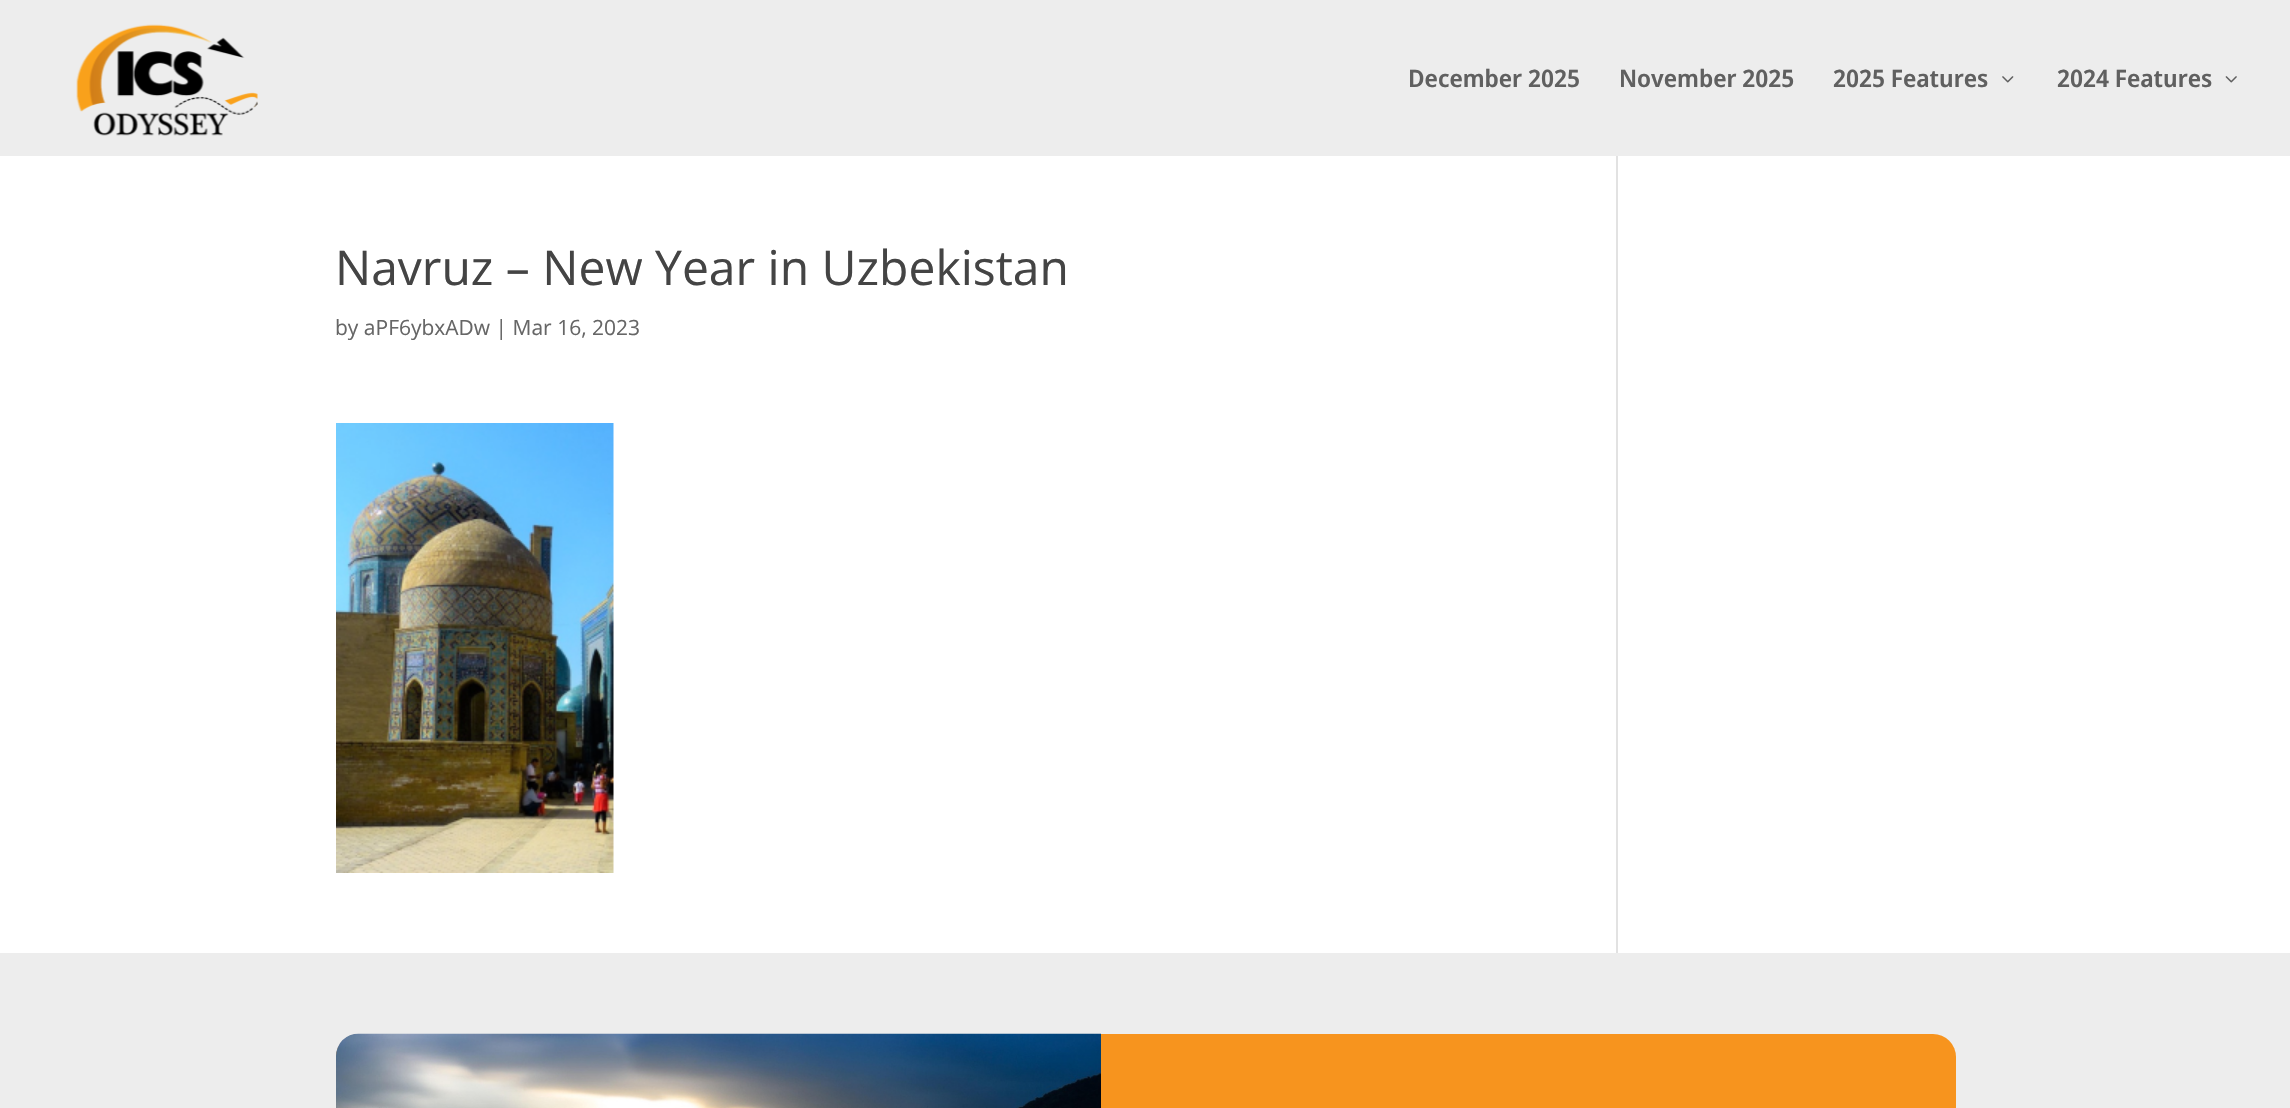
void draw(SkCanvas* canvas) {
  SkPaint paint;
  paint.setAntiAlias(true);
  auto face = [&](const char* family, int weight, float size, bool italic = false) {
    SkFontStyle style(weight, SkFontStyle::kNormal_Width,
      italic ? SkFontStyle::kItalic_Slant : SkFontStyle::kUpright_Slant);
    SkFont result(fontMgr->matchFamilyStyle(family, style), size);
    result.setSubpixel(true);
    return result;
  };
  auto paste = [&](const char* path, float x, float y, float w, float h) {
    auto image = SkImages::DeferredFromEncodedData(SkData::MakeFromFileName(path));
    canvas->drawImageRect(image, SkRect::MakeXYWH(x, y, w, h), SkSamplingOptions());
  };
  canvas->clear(0xffededed);
  paste("img/1.png", 76, 24, 182, 112);
  paste("img/2.png", 2002, 76, 12, 7);
  paste("img/3.png", 2225, 76, 12, 7);
  paint.setColor(0xffffffff);
  canvas->drawRect(SkRect::MakeXYWH(0, 156, 2290, 797), paint);
  paste("img/4.png", 336, 423, 278, 450);
  paint.setColor(0xffe2e2e2);
  canvas->drawRect(SkRect::MakeXYWH(1616, 156, 2, 797), paint);
  paint.setColor(0xfff7941e);
  canvas->drawRoundRect(SkRect::MakeXYWH(336, 1034, 1620, 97), 23, 23, paint);
  paste("img/5.png", 336, 1033, 765, 75);
  auto f0 = face("Noto Sans Display", 600, 24);
  paint.setColor(0xff606060);
  {
    const struct { const char* s; float x, y; } items[] = {
      {"December 2025", 1408, 87},
      {"November 2025", 1619, 87},
      {"2025 Features", 1833, 87},
      {"2024 Features", 2057, 87},
    };
    for (auto [s, x, y] : items) {
      canvas->drawString(s, x, y, f0, paint);
    }
  }
  auto f1 = face("Open Sans", 400, 48);
  paint.setColor(0xff444444);
  canvas->drawString("Navruz – New Year in Uzbekistan", 335, 285, f1, paint);
  auto f2 = face("Open Sans", 400, 21);
  paint.setColor(0xff666666);
  canvas->drawString("by aPF6ybxADw | Mar 16, 2023", 335, 335, f2, paint);
}
